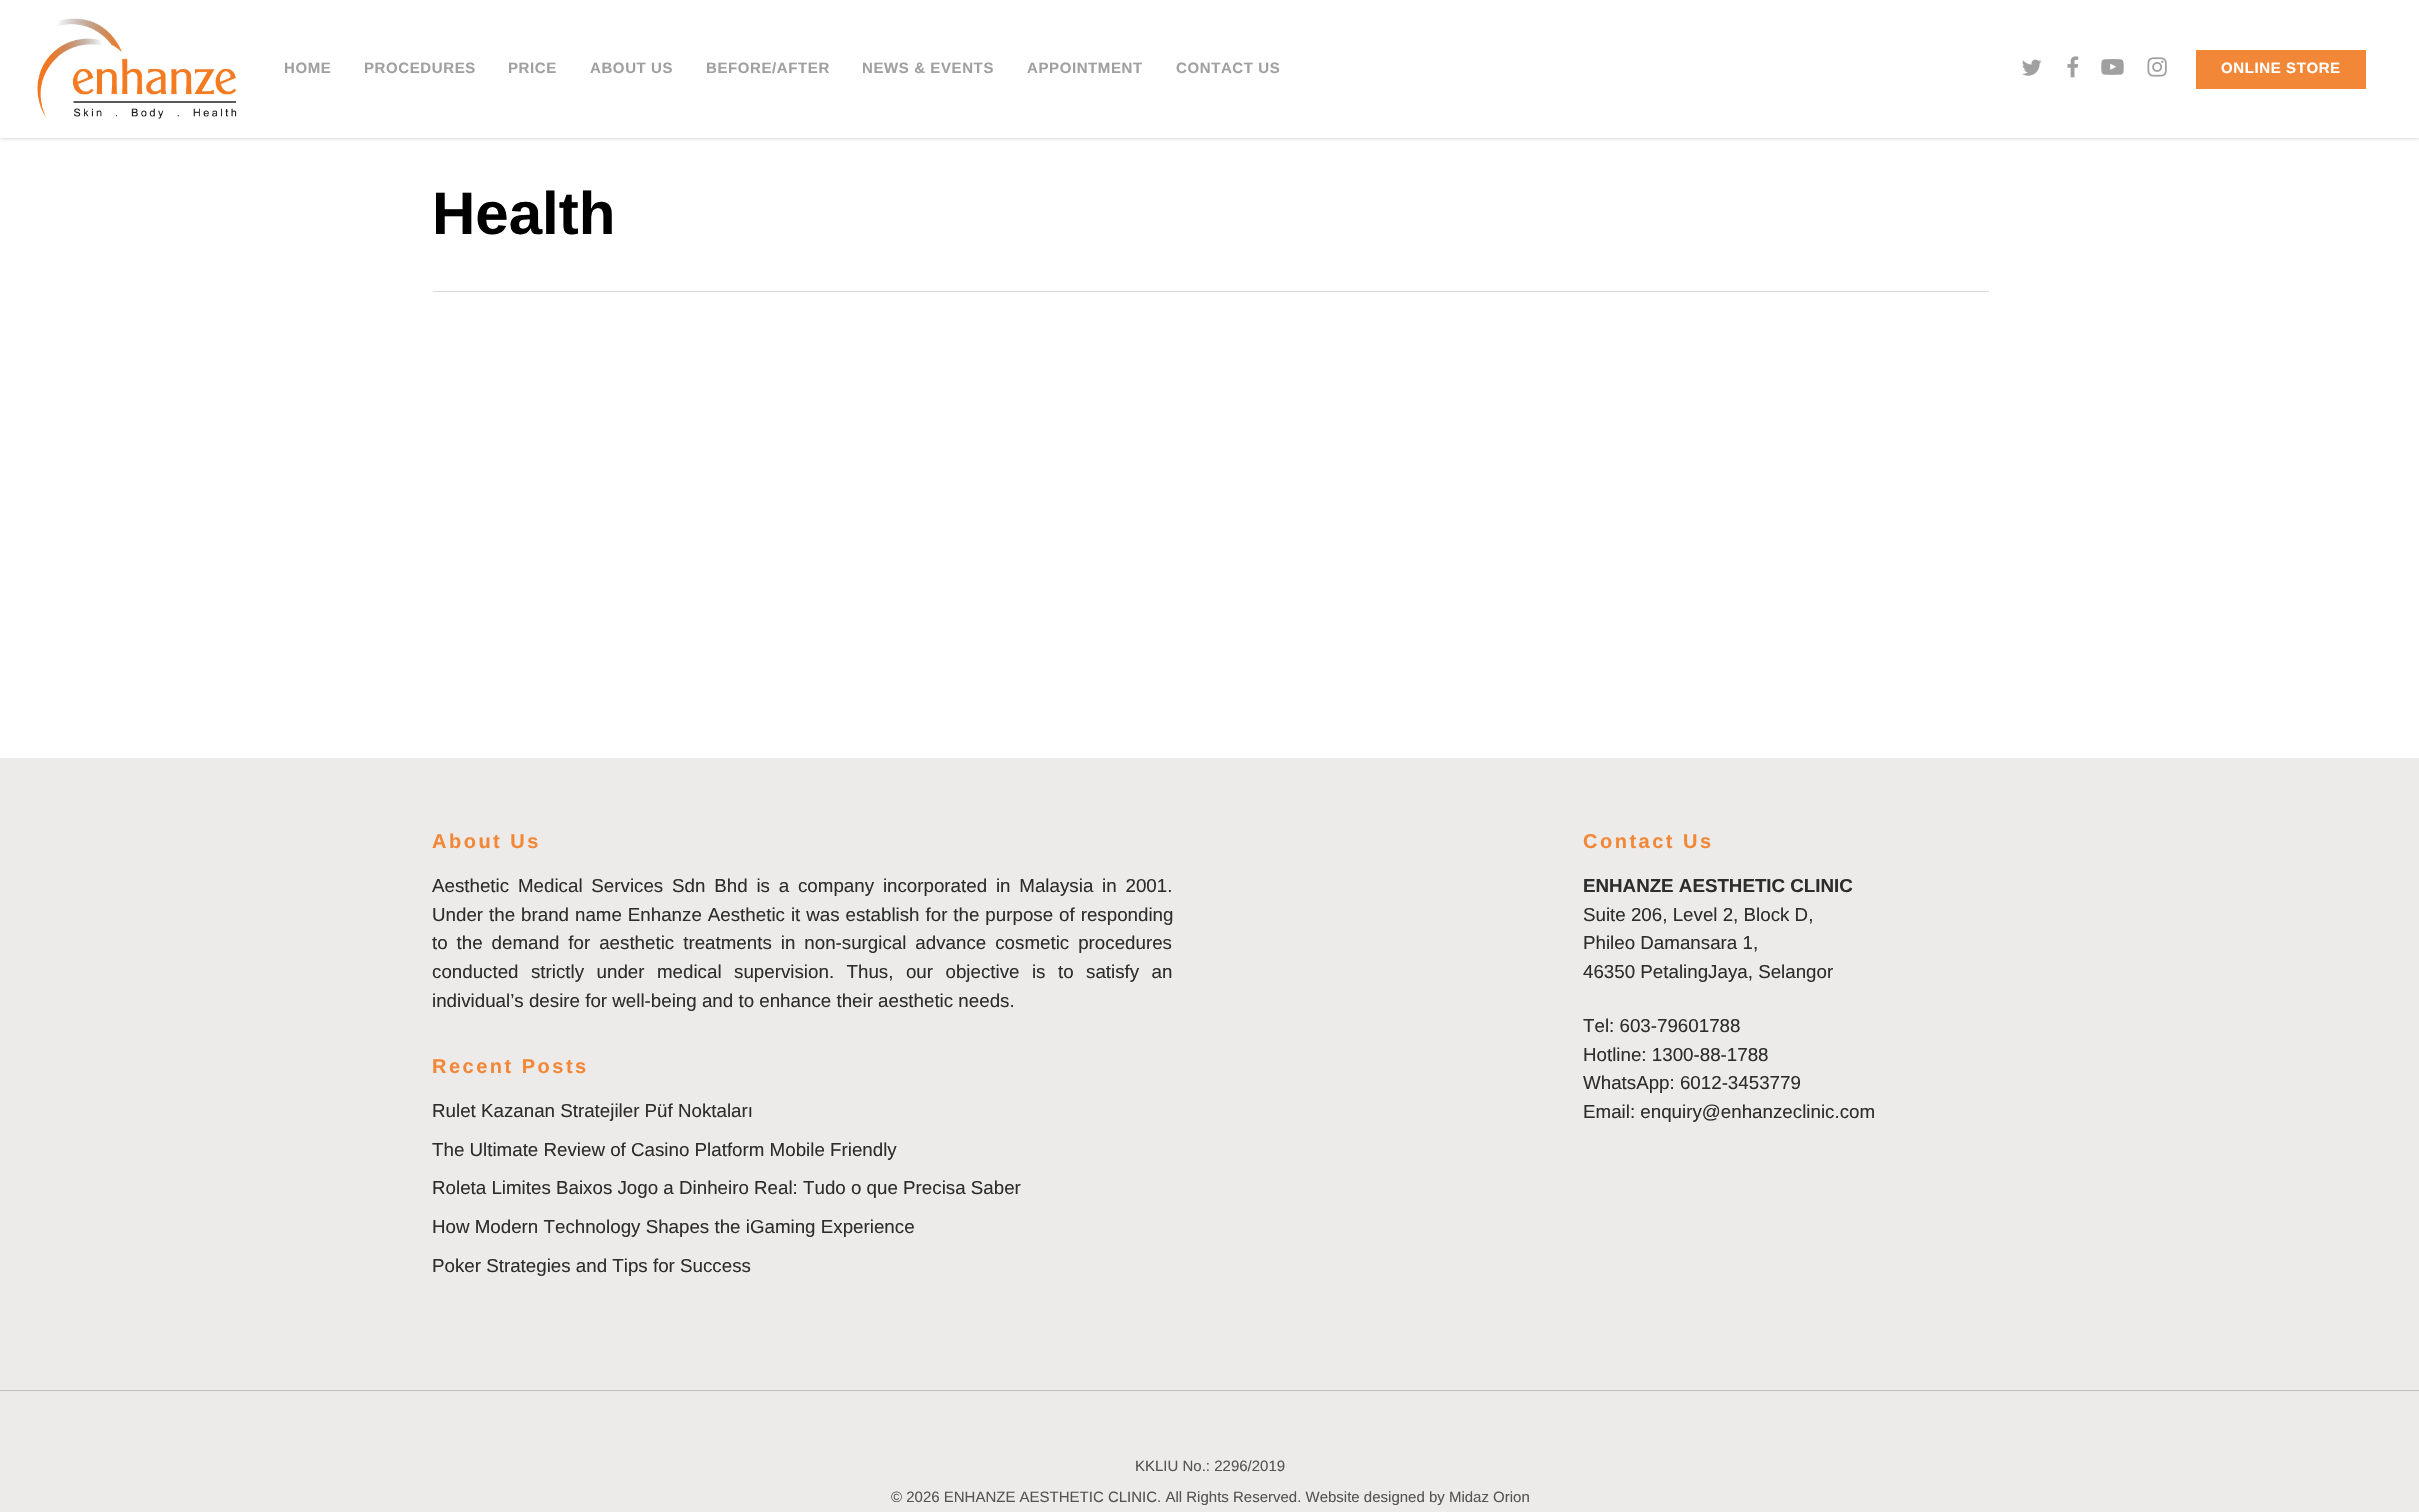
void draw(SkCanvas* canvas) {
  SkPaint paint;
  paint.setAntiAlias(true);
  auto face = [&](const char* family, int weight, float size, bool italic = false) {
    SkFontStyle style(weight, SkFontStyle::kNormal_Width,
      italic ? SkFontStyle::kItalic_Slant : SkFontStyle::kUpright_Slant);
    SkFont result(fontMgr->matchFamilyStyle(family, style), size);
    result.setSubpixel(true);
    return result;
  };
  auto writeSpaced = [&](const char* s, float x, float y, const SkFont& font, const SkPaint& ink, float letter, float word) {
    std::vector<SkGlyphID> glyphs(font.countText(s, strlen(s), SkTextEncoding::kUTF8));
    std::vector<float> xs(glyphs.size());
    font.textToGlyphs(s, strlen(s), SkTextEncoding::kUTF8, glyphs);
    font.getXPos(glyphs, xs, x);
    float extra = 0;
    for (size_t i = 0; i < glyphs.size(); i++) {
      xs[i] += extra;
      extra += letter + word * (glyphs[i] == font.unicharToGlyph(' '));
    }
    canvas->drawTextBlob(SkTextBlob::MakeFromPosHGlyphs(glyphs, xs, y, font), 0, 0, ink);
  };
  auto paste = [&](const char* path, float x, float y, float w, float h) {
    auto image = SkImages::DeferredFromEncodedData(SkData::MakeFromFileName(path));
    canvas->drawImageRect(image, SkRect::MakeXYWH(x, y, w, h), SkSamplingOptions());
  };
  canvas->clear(0xffffffff);
  paint.setColor(0x38000000);
  paint.setMaskFilter(SkMaskFilter::MakeBlur(kNormal_SkBlurStyle, 2));
  canvas->drawRect(SkRect::MakeXYWH(0, 0, 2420, 138), paint);
  paint.setMaskFilter(nullptr);
  paint.setColor(0xffffffff);
  canvas->drawRect(SkRect::MakeXYWH(0, 0, 2419, 138), paint);
  paste("img/1.png", 37, 18, 200, 101);
  paste("img/2.png", 2022, 59, 20, 17);
  paste("img/3.png", 2067, 56, 12, 22);
  paste("img/4.png", 2101, 59, 23, 16);
  paste("img/5.png", 2147, 57, 20, 20);
  {
    const struct { float x, y, w, h; SkColor color; } items[] = {
      {2196, 50, 170, 39, 0xfff28837},
      {433, 291, 1556, 1, 0xffd9d9d9},
      {0, 758, 2419, 754, 0xffecebea},
      {0, 1390, 2419, 1, 0xffbfbfbf},
    };
    for (auto [x, y, w, h, color] : items) {
      paint.setColor(color);
      canvas->drawRect(SkRect::MakeXYWH(x, y, w, h), paint);
    }
  }
  auto f0 = face("Liberation Sans", 700, 15);
  paint.setColor(0xffa0a0a0);
  {
    const struct { const char* s; float x, y; } items[] = {
      {"HOME", 284, 73},
      {"PROCEDURES", 364, 73},
      {"PRICE", 508, 73},
      {"ABOUT US", 590, 73},
      {"BEFORE/AFTER", 706, 73},
      {"NEWS & EVENTS", 862, 73},
      {"APPOINTMENT", 1027, 73},
      {"CONTACT US", 1176, 73},
    };
    for (auto [s, x, y] : items) {
      writeSpaced(s, x, y, f0, paint, 0.6f, 0);
    }
  }
  paint.setColor(0xffffffff);
  writeSpaced("ONLINE STORE", 2221, 73, f0, paint, 0.6f, 0);
  auto f1 = face("Liberation Sans", 700, 60);
  paint.setColor(0xff000000);
  canvas->drawString("Health", 432, 234, f1, paint);
  auto f2 = face("Liberation Sans", 700, 20);
  paint.setColor(0xfff28837);
  writeSpaced("About Us", 432, 848, f2, paint, 2.5f, 0);
  auto f3 = face("Liberation Sans", 400, 18.75f);
  paint.setColor(0xff2d2d2d);
  writeSpaced("Aesthetic Medical Services Sdn Bhd is a company incorporated in Malaysia in 2001.", 432, 892, f3, paint, 0, 3.6f);
  writeSpaced("Under the brand name Enhanze Aesthetic it was establish for the purpose of responding", 432, 921, f3, paint, 0, 0.75f);
  writeSpaced("to the demand for aesthetic treatments in non-surgical advance cosmetic procedures", 432, 949, f3, paint, 0, 3.75f);
  writeSpaced("conducted strictly under medical supervision. Thus, our objective is to satisfy an", 432, 978, f3, paint, 0, 7.25f);
  canvas->drawString("individual’s desire for well-being and to enhance their aesthetic needs.", 432, 1007, f3, paint);
  paint.setColor(0xfff28837);
  writeSpaced("Recent Posts", 432, 1073, f2, paint, 2.5f, 0);
  paint.setColor(0xff2d2d2d);
  {
    const struct { const char* s; float x, y; } items[] = {
      {"Rulet Kazanan Stratejiler Püf Noktaları", 432, 1117},
      {"The Ultimate Review of Casino Platform Mobile Friendly", 432, 1156},
      {"Roleta Limites Baixos Jogo a Dinheiro Real: Tudo o que Precisa Saber", 432, 1194},
      {"How Modern Technology Shapes the iGaming Experience", 432, 1233},
      {"Poker Strategies and Tips for Success", 432, 1272},
    };
    for (auto [s, x, y] : items) {
      canvas->drawString(s, x, y, f3, paint);
    }
  }
  paint.setColor(0xfff28837);
  writeSpaced("Contact Us", 1583, 848, f2, paint, 2.5f, 0);
  auto f4 = face("Liberation Sans", 700, 18.75f);
  paint.setColor(0xff2d2d2d);
  canvas->drawString("ENHANZE AESTHETIC CLINIC", 1583, 892, f4, paint);
  {
    const struct { const char* s; float x, y; } items[] = {
      {"Suite 206, Level 2, Block D,", 1583, 921},
      {"Phileo Damansara 1,", 1583, 949},
      {"46350 PetalingJaya, Selangor", 1583, 978},
      {"Tel: 603-79601788", 1583, 1032},
      {"Hotline: 1300-88-1788", 1583, 1061},
      {"WhatsApp: 6012-3453779", 1583, 1089},
      {"Email: enquiry@enhanzeclinic.com", 1583, 1118},
    };
    for (auto [s, x, y] : items) {
      canvas->drawString(s, x, y, f3, paint);
    }
  }
  auto f5 = face("Liberation Sans", 400, 15);
  paint.setColor(0xff545454);
  canvas->drawString("KKLIU No.: 2296/2019", 1135, 1471, f5, paint);
  canvas->drawString("© 2026 ENHANZE AESTHETIC CLINIC. All Rights Reserved. Website designed by Midaz Orion", 891, 1502, f5, paint);
}
